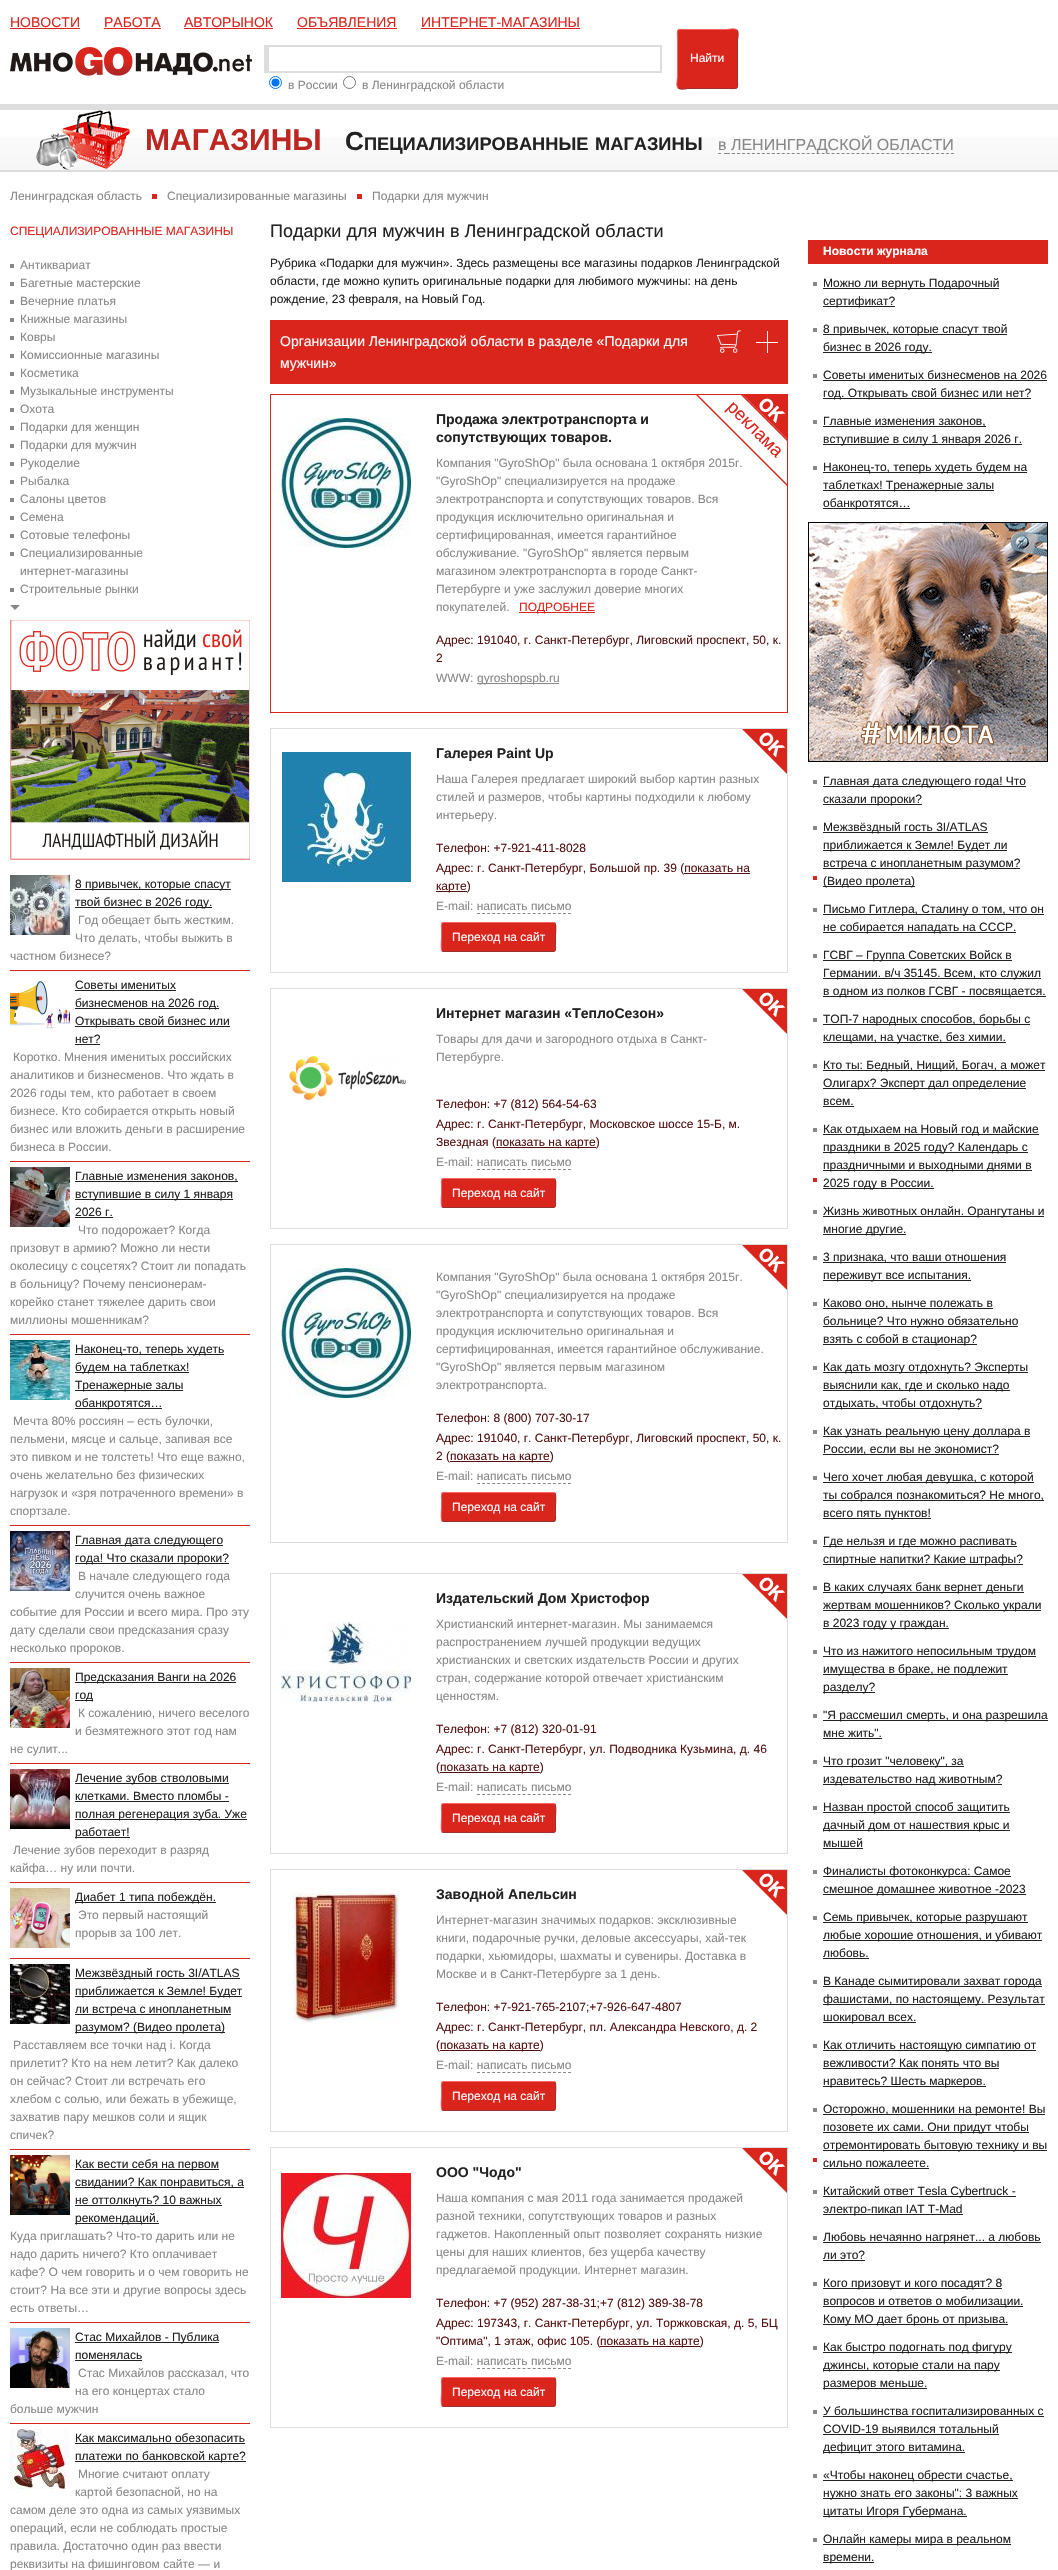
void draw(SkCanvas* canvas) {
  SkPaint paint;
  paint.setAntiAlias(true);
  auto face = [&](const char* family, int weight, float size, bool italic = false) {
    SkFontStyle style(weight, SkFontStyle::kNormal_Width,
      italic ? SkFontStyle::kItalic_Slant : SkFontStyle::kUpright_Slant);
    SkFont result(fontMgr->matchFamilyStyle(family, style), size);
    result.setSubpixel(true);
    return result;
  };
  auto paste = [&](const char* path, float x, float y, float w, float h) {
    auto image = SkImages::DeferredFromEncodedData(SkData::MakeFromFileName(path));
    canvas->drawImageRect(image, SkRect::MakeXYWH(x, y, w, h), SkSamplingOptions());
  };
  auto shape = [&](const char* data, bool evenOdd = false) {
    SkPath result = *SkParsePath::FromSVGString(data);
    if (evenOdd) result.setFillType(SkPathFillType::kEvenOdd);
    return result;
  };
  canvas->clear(0xffffffff);
  {
    const struct { float x, y, w, h; SkColor color; } items[] = {
      {10, 28, 70, 1, 0xffda251d},
      {104, 28, 57, 1, 0xffda251d},
      {184, 28, 89, 1, 0xffda251d},
      {297, 28, 100, 1, 0xffda251d},
      {421, 28, 159, 1, 0xffda251d},
    };
    for (auto [x, y, w, h, color] : items) {
      paint.setColor(color);
      canvas->drawRect(SkRect::MakeXYWH(x, y, w, h), paint);
    }
  }
  paste("img/1.png", 10, 47, 242, 29);
  canvas->drawRoundRect(SkRect::MakeXYWH(677, 29, 61, 60), 3, 3, paint);
  paint.setStroke(true);
  paint.setStrokeWidth(1);
  paint.setColor(0xff993333);
  canvas->drawPath(shape("M737 30C739.5 33 737.5 37.5 737.5 41V77C737.5 90.5 739.5 88.5 726 88.5H689C685.5 88.5 681 90.5 678 88"), paint);
  paint.setColor(0xffff6666);
  canvas->drawPath(shape("M678 88C675.5 85 677.5 80.5 677.5 77V41C677.5 27.5 675.5 29.5 689 29.5H726C729.5 29.5 734 27.5 737 30"), paint);
  paint.setStroke(false);
  {
    const struct { float x, y, w, h; SkColor color; } items[] = {
      {264, 45, 398, 2, 0xffdddddd},
      {660, 45, 2, 28, 0xffdddddd},
      {264, 71, 398, 2, 0xffdddddd},
      {264, 45, 5, 28, 0xffdddddd},
    };
    for (auto [x, y, w, h, color] : items) {
      paint.setColor(color);
      canvas->drawRect(SkRect::MakeXYWH(x, y, w, h), paint);
    }
  }
  paint.setStroke(true);
  paint.setColor(0xff0075ff);
  canvas->drawCircle(275.5f, 82.5f, 6, paint);
  paint.setStroke(false);
  canvas->drawCircle(275.5f, 82.5f, 4, paint);
  paint.setStroke(true);
  paint.setColor(0xff767676);
  canvas->drawCircle(349.5f, 82.5f, 6, paint);
  paste("img/2.png", 0, 137, 1058, 33);
  paint.setStroke(false);
  paint.setColor(0xffdddddd);
  canvas->drawRect(SkRect::MakeXYWH(0, 104, 1058, 6), paint);
  canvas->drawRect(SkRect::MakeXYWH(0, 170, 1058, 2), paint);
  paste("img/3.png", 36, 110, 94, 60);
  paint.setStroke(true);
  paint.setColor(0xff888888);
  canvas->drawPath(shape("M718 153.5H721M724 153.5H727"), paint);
  paint.setPathEffect(SkDashPathEffect::Make({{3, 1.98f}}, 0));
  canvas->drawPath(shape("M727 153.5H954"), paint);
  paint.setPathEffect(nullptr);
  paint.setStroke(false);
  {
    const struct { float x, y, w, h; SkColor color; } items[] = {
      {152, 194, 5, 5, 0xffda251d},
      {357, 194, 5, 5, 0xffda251d},
      {10, 264, 4, 4, 0xff888888},
      {10, 282, 4, 4, 0xff888888},
      {10, 300, 4, 4, 0xff888888},
      {10, 318, 4, 4, 0xff888888},
      {10, 336, 4, 4, 0xff888888},
      {10, 354, 4, 4, 0xff888888},
      {10, 372, 4, 4, 0xff888888},
      {10, 390, 4, 4, 0xff888888},
      {10, 408, 4, 4, 0xff888888},
      {10, 426, 4, 4, 0xff888888},
      {10, 444, 4, 4, 0xff888888},
      {10, 462, 4, 4, 0xff888888},
      {10, 480, 4, 4, 0xff888888},
      {10, 498, 4, 4, 0xff888888},
      {10, 516, 4, 4, 0xff888888},
      {10, 534, 4, 4, 0xff888888},
      {10, 552, 4, 4, 0xff888888},
      {10, 588, 4, 4, 0xff888888},
    };
    for (auto [x, y, w, h, color] : items) {
      paint.setColor(color);
      canvas->drawRect(SkRect::MakeXYWH(x, y, w, h), paint);
    }
  }
  canvas->drawPath(shape("M10 605H20L15 610Z"), paint);
  paste("img/4.png", 10, 620, 240, 240);
  paint.setColor(0xffda251d);
  canvas->drawRect(SkRect::MakeXYWH(10, 970, 240, 1), paint);
  paste("img/5.png", 10, 875, 60, 60);
  {
    const struct { float x, y, w, h; SkColor color; } items[] = {
      {75, 889, 156, 1, 0xff222222},
      {75, 907, 137, 1, 0xff222222},
      {10, 1161, 240, 1, 0xffda251d},
    };
    for (auto [x, y, w, h, color] : items) {
      paint.setColor(color);
      canvas->drawRect(SkRect::MakeXYWH(x, y, w, h), paint);
    }
  }
  paste("img/6.png", 10, 981, 60, 48);
  {
    const struct { float x, y, w, h; SkColor color; } items[] = {
      {75, 990, 101, 1, 0xff222222},
      {75, 1008, 144, 1, 0xff222222},
      {75, 1026, 155, 1, 0xff222222},
      {75, 1044, 25, 1, 0xff222222},
      {10, 1334, 240, 1, 0xffda251d},
    };
    for (auto [x, y, w, h, color] : items) {
      paint.setColor(color);
      canvas->drawRect(SkRect::MakeXYWH(x, y, w, h), paint);
    }
  }
  paste("img/7.png", 10, 1167, 60, 60);
  {
    const struct { float x, y, w, h; SkColor color; } items[] = {
      {75, 1181, 163, 1, 0xff222222},
      {75, 1199, 158, 1, 0xff222222},
      {75, 1217, 38, 1, 0xff222222},
      {10, 1525, 240, 1, 0xffda251d},
    };
    for (auto [x, y, w, h, color] : items) {
      paint.setColor(color);
      canvas->drawRect(SkRect::MakeXYWH(x, y, w, h), paint);
    }
  }
  paste("img/8.png", 10, 1340, 60, 60);
  {
    const struct { float x, y, w, h; SkColor color; } items[] = {
      {75, 1354, 149, 1, 0xff222222},
      {75, 1372, 114, 1, 0xff222222},
      {75, 1390, 108, 1, 0xff222222},
      {75, 1408, 87, 1, 0xff222222},
      {10, 1662, 240, 1, 0xffda251d},
    };
    for (auto [x, y, w, h, color] : items) {
      paint.setColor(color);
      canvas->drawRect(SkRect::MakeXYWH(x, y, w, h), paint);
    }
  }
  paste("img/9.png", 10, 1531, 60, 60);
  {
    const struct { float x, y, w, h; SkColor color; } items[] = {
      {75, 1545, 148, 1, 0xff222222},
      {75, 1563, 154, 1, 0xff222222},
      {10, 1763, 240, 1, 0xffda251d},
    };
    for (auto [x, y, w, h, color] : items) {
      paint.setColor(color);
      canvas->drawRect(SkRect::MakeXYWH(x, y, w, h), paint);
    }
  }
  paste("img/10.png", 10, 1668, 60, 60);
  {
    const struct { float x, y, w, h; SkColor color; } items[] = {
      {75, 1682, 161, 1, 0xff222222},
      {75, 1700, 18, 1, 0xff222222},
      {10, 1882, 240, 1, 0xffda251d},
    };
    for (auto [x, y, w, h, color] : items) {
      paint.setColor(color);
      canvas->drawRect(SkRect::MakeXYWH(x, y, w, h), paint);
    }
  }
  paste("img/11.png", 10, 1769, 60, 60);
  {
    const struct { float x, y, w, h; SkColor color; } items[] = {
      {75, 1783, 154, 1, 0xff222222},
      {75, 1801, 154, 1, 0xff222222},
      {75, 1819, 172, 1, 0xff222222},
      {75, 1837, 55, 1, 0xff222222},
      {10, 1958, 240, 1, 0xffda251d},
    };
    for (auto [x, y, w, h, color] : items) {
      paint.setColor(color);
      canvas->drawRect(SkRect::MakeXYWH(x, y, w, h), paint);
    }
  }
  paste("img/12.png", 10, 1888, 60, 60);
  paint.setColor(0xff222222);
  canvas->drawRect(SkRect::MakeXYWH(75, 1902, 141, 1), paint);
  paint.setColor(0xffda251d);
  canvas->drawRect(SkRect::MakeXYWH(10, 2149, 240, 1), paint);
  paste("img/13.png", 10, 1964, 60, 60);
  {
    const struct { float x, y, w, h; SkColor color; } items[] = {
      {75, 1978, 165, 1, 0xff222222},
      {75, 1996, 167, 1, 0xff222222},
      {75, 2014, 156, 1, 0xff222222},
      {75, 2032, 150, 1, 0xff222222},
      {10, 2322, 240, 1, 0xffda251d},
    };
    for (auto [x, y, w, h, color] : items) {
      paint.setColor(color);
      canvas->drawRect(SkRect::MakeXYWH(x, y, w, h), paint);
    }
  }
  paste("img/14.png", 10, 2155, 60, 60);
  {
    const struct { float x, y, w, h; SkColor color; } items[] = {
      {75, 2169, 144, 1, 0xff222222},
      {75, 2187, 169, 1, 0xff222222},
      {75, 2205, 147, 1, 0xff222222},
      {75, 2223, 84, 1, 0xff222222},
      {10, 2423, 240, 1, 0xffda251d},
    };
    for (auto [x, y, w, h, color] : items) {
      paint.setColor(color);
      canvas->drawRect(SkRect::MakeXYWH(x, y, w, h), paint);
    }
  }
  paste("img/15.png", 10, 2328, 60, 60);
  paint.setColor(0xff222222);
  canvas->drawRect(SkRect::MakeXYWH(75, 2342, 144, 1), paint);
  canvas->drawRect(SkRect::MakeXYWH(75, 2360, 67, 1), paint);
  paste("img/16.png", 10, 2429, 60, 60);
  {
    const struct { float x, y, w, h; SkColor color; } items[] = {
      {75, 2443, 170, 1, 0xff222222},
      {75, 2461, 171, 1, 0xff222222},
      {270, 320, 518, 64, 0xffda251d},
    };
    for (auto [x, y, w, h, color] : items) {
      paint.setColor(color);
      canvas->drawRect(SkRect::MakeXYWH(x, y, w, h), paint);
    }
  }
  paste("img/17.png", 716, 330, 25, 23);
  paint.setColor(0xffffffff);
  canvas->drawRect(SkRect::MakeXYWH(756, 342, 22, 1), paint);
  canvas->drawRect(SkRect::MakeXYWH(767, 331, 1, 22), paint);
  paste("img/18.png", 743, 395, 44, 44);
  paint.setStroke(true);
  paint.setColor(0xffda251d);
  canvas->drawRect(SkRect::MakeXYWH(270.5f, 394.5f, 517, 318), paint);
  paste("img/19.png", 281, 418, 130, 130);
  paint.setStroke(false);
  canvas->drawRect(SkRect::MakeXYWH(519, 612, 76, 1), paint);
  paint.setColor(0xff888888);
  canvas->drawRect(SkRect::MakeXYWH(477, 683, 82, 1), paint);
  paint.setStroke(true);
  paint.setColor(0xffdddddd);
  canvas->drawRect(SkRect::MakeXYWH(270.5f, 728.5f, 517, 244), paint);
  paste("img/20.png", 282, 752, 129, 130);
  paint.setStroke(false);
  paint.setColor(0xff551111);
  canvas->drawRect(SkRect::MakeXYWH(684, 873, 66, 1), paint);
  canvas->drawRect(SkRect::MakeXYWH(436, 891, 31, 1), paint);
  paint.setStroke(true);
  paint.setColor(0xff888888);
  paint.setPathEffect(SkDashPathEffect::Make({{3, 2.06f}}, 0));
  canvas->drawPath(shape("M477 913.5H571"), paint);
  paint.setPathEffect(nullptr);
  paint.setStroke(false);
  paint.setColor(0xffda251d);
  canvas->drawRoundRect(SkRect::MakeXYWH(441, 922, 115, 30), 3, 3, paint);
  paint.setStroke(true);
  paint.setColor(0xff993333);
  canvas->drawPath(shape("M555 923C556.5 925 555.5 934.5 555.5 937V945C555.5 947 556.5 951.5 553 951.5H444L442 951"), paint);
  paint.setColor(0xffff6666);
  canvas->drawPath(shape("M442 951C440.5 949 441.5 939.5 441.5 937V929C441.5 927 440.5 922.5 444 922.5H553L555 923"), paint);
  paste("img/21.png", 742, 729, 45, 45);
  paint.setColor(0xffdddddd);
  canvas->drawRect(SkRect::MakeXYWH(270.5f, 988.5f, 517, 240), paint);
  paste("img/22.png", 289, 1055, 117, 46);
  paint.setStroke(false);
  paint.setColor(0xff551111);
  canvas->drawRect(SkRect::MakeXYWH(496, 1147, 100, 1), paint);
  paint.setStroke(true);
  paint.setColor(0xff888888);
  paint.setPathEffect(SkDashPathEffect::Make({{3, 2.06f}}, 0));
  canvas->drawPath(shape("M477 1169.5H571"), paint);
  paint.setPathEffect(nullptr);
  paint.setStroke(false);
  paint.setColor(0xffda251d);
  canvas->drawRoundRect(SkRect::MakeXYWH(441, 1178, 115, 30), 3, 3, paint);
  paint.setStroke(true);
  paint.setColor(0xff993333);
  canvas->drawPath(shape("M555 1179C556.5 1181 555.5 1190.5 555.5 1193V1201C555.5 1203 556.5 1207.5 553 1207.5H444L442 1207"), paint);
  paint.setColor(0xffff6666);
  canvas->drawPath(shape("M442 1207C440.5 1205 441.5 1195.5 441.5 1193V1185C441.5 1183 440.5 1178.5 444 1178.5H553L555 1179"), paint);
  paste("img/21.png", 742, 989, 45, 45);
  paint.setColor(0xffdddddd);
  canvas->drawRect(SkRect::MakeXYWH(270.5f, 1244.5f, 517, 298), paint);
  paste("img/19.png", 281, 1268, 130, 130);
  paste("img/21.png", 742, 1245, 45, 45);
  paint.setStroke(false);
  paint.setColor(0xff551111);
  canvas->drawRect(SkRect::MakeXYWH(450, 1461, 100, 1), paint);
  paint.setStroke(true);
  paint.setColor(0xff888888);
  paint.setPathEffect(SkDashPathEffect::Make({{3, 2.06f}}, 0));
  canvas->drawPath(shape("M477 1483.5H571"), paint);
  paint.setPathEffect(nullptr);
  paint.setStroke(false);
  paint.setColor(0xffda251d);
  canvas->drawRoundRect(SkRect::MakeXYWH(441, 1492, 115, 30), 3, 3, paint);
  paint.setStroke(true);
  paint.setColor(0xff993333);
  canvas->drawPath(shape("M555 1493C556.5 1495 555.5 1504.5 555.5 1507V1515C555.5 1517 556.5 1521.5 553 1521.5H444L442 1521"), paint);
  paint.setColor(0xffff6666);
  canvas->drawPath(shape("M442 1521C440.5 1519 441.5 1509.5 441.5 1507V1499C441.5 1497 440.5 1492.5 444 1492.5H553L555 1493"), paint);
  paint.setColor(0xffdddddd);
  canvas->drawRect(SkRect::MakeXYWH(270.5f, 1573.5f, 517, 280), paint);
  paste("img/21.png", 742, 1574, 45, 45);
  paste("img/23.png", 281, 1622, 130, 80);
  paint.setStroke(false);
  paint.setColor(0xff551111);
  canvas->drawRect(SkRect::MakeXYWH(440, 1772, 100, 1), paint);
  paint.setStroke(true);
  paint.setColor(0xff888888);
  paint.setPathEffect(SkDashPathEffect::Make({{3, 2.06f}}, 0));
  canvas->drawPath(shape("M477 1794.5H571"), paint);
  paint.setPathEffect(nullptr);
  paint.setStroke(false);
  paint.setColor(0xffda251d);
  canvas->drawRoundRect(SkRect::MakeXYWH(441, 1803, 115, 30), 3, 3, paint);
  paint.setStroke(true);
  paint.setColor(0xff993333);
  canvas->drawPath(shape("M555 1804C556.5 1806 555.5 1815.5 555.5 1818V1826C555.5 1828 556.5 1832.5 553 1832.5H444L442 1832"), paint);
  paint.setColor(0xffff6666);
  canvas->drawPath(shape("M442 1832C440.5 1830 441.5 1820.5 441.5 1818V1810C441.5 1808 440.5 1803.5 444 1803.5H553L555 1804"), paint);
  paint.setColor(0xffdddddd);
  canvas->drawRect(SkRect::MakeXYWH(270.5f, 1869.5f, 517, 262), paint);
  paste("img/24.png", 293, 1893, 106, 130);
  paint.setStroke(false);
  paint.setColor(0xff551111);
  canvas->drawRect(SkRect::MakeXYWH(440, 2050, 100, 1), paint);
  paint.setStroke(true);
  paint.setColor(0xff888888);
  paint.setPathEffect(SkDashPathEffect::Make({{3, 2.06f}}, 0));
  canvas->drawPath(shape("M477 2072.5H571"), paint);
  paint.setPathEffect(nullptr);
  paint.setStroke(false);
  paint.setColor(0xffda251d);
  canvas->drawRoundRect(SkRect::MakeXYWH(441, 2081, 115, 30), 3, 3, paint);
  paint.setStroke(true);
  paint.setColor(0xff993333);
  canvas->drawPath(shape("M555 2082C556.5 2084 555.5 2093.5 555.5 2096V2104C555.5 2106 556.5 2110.5 553 2110.5H444L442 2110"), paint);
  paint.setColor(0xffff6666);
  canvas->drawPath(shape("M442 2110C440.5 2108 441.5 2098.5 441.5 2096V2088C441.5 2086 440.5 2081.5 444 2081.5H553L555 2082"), paint);
  paste("img/21.png", 742, 1870, 45, 45);
  paint.setColor(0xffdddddd);
  canvas->drawRect(SkRect::MakeXYWH(270.5f, 2147.5f, 517, 280), paint);
  paste("img/21.png", 742, 2148, 45, 45);
  paste("img/25.png", 281, 2173, 130, 125);
  paint.setStroke(false);
  paint.setColor(0xff551111);
  canvas->drawRect(SkRect::MakeXYWH(600, 2346, 100, 1), paint);
  paint.setStroke(true);
  paint.setColor(0xff888888);
  paint.setPathEffect(SkDashPathEffect::Make({{3, 2.06f}}, 0));
  canvas->drawPath(shape("M477 2368.5H571"), paint);
  paint.setPathEffect(nullptr);
  paint.setStroke(false);
  paint.setColor(0xffda251d);
  canvas->drawRoundRect(SkRect::MakeXYWH(441, 2377, 115, 30), 3, 3, paint);
  paint.setStroke(true);
  paint.setColor(0xff993333);
  canvas->drawPath(shape("M555 2378C556.5 2380 555.5 2389.5 555.5 2392V2400C555.5 2402 556.5 2406.5 553 2406.5H444L442 2406"), paint);
  paint.setColor(0xffff6666);
  canvas->drawPath(shape("M442 2406C440.5 2404 441.5 2394.5 441.5 2392V2384C441.5 2382 440.5 2377.5 444 2377.5H553L555 2378"), paint);
  paint.setStroke(false);
  {
    const struct { float x, y, w, h; SkColor color; } items[] = {
      {808, 240, 240, 24, 0xffda251d},
      {813, 282, 4, 4, 0xff888888},
      {823, 288, 176, 1, 0xff222222},
      {823, 306, 72, 1, 0xff222222},
      {813, 328, 4, 4, 0xff888888},
      {823, 334, 184, 1, 0xff222222},
      {823, 352, 109, 1, 0xff222222},
      {813, 374, 4, 4, 0xff888888},
      {823, 380, 224, 1, 0xff222222},
      {823, 398, 208, 1, 0xff222222},
      {813, 420, 4, 4, 0xff888888},
      {823, 426, 163, 1, 0xff222222},
      {823, 444, 199, 1, 0xff222222},
      {813, 466, 4, 4, 0xff888888},
      {823, 472, 204, 1, 0xff222222},
      {823, 490, 171, 1, 0xff222222},
      {823, 508, 87, 1, 0xff222222},
    };
    for (auto [x, y, w, h, color] : items) {
      paint.setColor(color);
      canvas->drawRect(SkRect::MakeXYWH(x, y, w, h), paint);
    }
  }
  paste("img/26.png", 808, 522, 240, 240);
  {
    const struct { float x, y, w, h; SkColor color; } items[] = {
      {813, 780, 4, 4, 0xff888888},
      {823, 786, 203, 1, 0xff222222},
      {823, 804, 99, 1, 0xff222222},
    };
    for (auto [x, y, w, h, color] : items) {
      paint.setColor(color);
      canvas->drawRect(SkRect::MakeXYWH(x, y, w, h), paint);
    }
  }
  paste("img/27.png", 813, 826, 4, 54);
  {
    const struct { float x, y, w, h; SkColor color; } items[] = {
      {823, 832, 165, 1, 0xff222222},
      {823, 850, 184, 1, 0xff222222},
      {823, 868, 197, 1, 0xff222222},
      {823, 886, 92, 1, 0xff222222},
      {813, 908, 4, 4, 0xff888888},
      {823, 914, 221, 1, 0xff222222},
      {823, 932, 193, 1, 0xff222222},
      {813, 954, 4, 4, 0xff888888},
      {823, 960, 189, 1, 0xff222222},
      {823, 978, 218, 1, 0xff222222},
      {823, 996, 223, 1, 0xff222222},
      {813, 1018, 4, 4, 0xff888888},
      {823, 1024, 207, 1, 0xff222222},
      {823, 1042, 183, 1, 0xff222222},
      {813, 1064, 4, 4, 0xff888888},
      {823, 1070, 222, 1, 0xff222222},
      {823, 1088, 203, 1, 0xff222222},
      {823, 1106, 31, 1, 0xff222222},
    };
    for (auto [x, y, w, h, color] : items) {
      paint.setColor(color);
      canvas->drawRect(SkRect::MakeXYWH(x, y, w, h), paint);
    }
  }
  paste("img/27.png", 813, 1128, 4, 54);
  {
    const struct { float x, y, w, h; SkColor color; } items[] = {
      {823, 1134, 216, 1, 0xff222222},
      {823, 1152, 205, 1, 0xff222222},
      {823, 1170, 209, 1, 0xff222222},
      {823, 1188, 111, 1, 0xff222222},
      {813, 1210, 4, 4, 0xff888888},
      {823, 1216, 221, 1, 0xff222222},
      {823, 1234, 83, 1, 0xff222222},
      {813, 1256, 4, 4, 0xff888888},
      {823, 1262, 183, 1, 0xff222222},
      {823, 1280, 148, 1, 0xff222222},
      {813, 1302, 4, 4, 0xff888888},
      {823, 1308, 170, 1, 0xff222222},
      {823, 1326, 195, 1, 0xff222222},
      {823, 1344, 154, 1, 0xff222222},
      {813, 1366, 4, 4, 0xff888888},
      {823, 1372, 205, 1, 0xff222222},
      {823, 1390, 187, 1, 0xff222222},
      {823, 1408, 159, 1, 0xff222222},
      {813, 1430, 4, 4, 0xff888888},
      {823, 1436, 207, 1, 0xff222222},
      {823, 1454, 176, 1, 0xff222222},
      {813, 1476, 4, 4, 0xff888888},
      {823, 1482, 211, 1, 0xff222222},
      {823, 1500, 221, 1, 0xff222222},
      {823, 1518, 108, 1, 0xff222222},
      {813, 1540, 4, 4, 0xff888888},
      {823, 1546, 194, 1, 0xff222222},
      {823, 1564, 200, 1, 0xff222222},
      {813, 1586, 4, 4, 0xff888888},
      {823, 1592, 201, 1, 0xff222222},
      {823, 1610, 218, 1, 0xff222222},
      {823, 1628, 126, 1, 0xff222222},
      {813, 1650, 4, 4, 0xff888888},
      {823, 1656, 213, 1, 0xff222222},
      {823, 1674, 185, 1, 0xff222222},
      {823, 1692, 52, 1, 0xff222222},
      {813, 1714, 4, 4, 0xff888888},
      {823, 1720, 225, 1, 0xff222222},
      {823, 1738, 59, 1, 0xff222222},
      {813, 1760, 4, 4, 0xff888888},
      {823, 1766, 141, 1, 0xff222222},
      {823, 1784, 179, 1, 0xff222222},
      {813, 1806, 4, 4, 0xff888888},
      {823, 1812, 187, 1, 0xff222222},
      {823, 1830, 187, 1, 0xff222222},
      {823, 1848, 40, 1, 0xff222222},
      {813, 1870, 4, 4, 0xff888888},
      {823, 1876, 188, 1, 0xff222222},
      {823, 1894, 203, 1, 0xff222222},
      {813, 1916, 4, 4, 0xff888888},
      {823, 1922, 205, 1, 0xff222222},
      {823, 1940, 219, 1, 0xff222222},
      {823, 1958, 46, 1, 0xff222222},
      {813, 1980, 4, 4, 0xff888888},
      {823, 1986, 219, 1, 0xff222222},
      {823, 2004, 222, 1, 0xff222222},
      {823, 2022, 93, 1, 0xff222222},
      {813, 2044, 4, 4, 0xff888888},
      {823, 2050, 213, 1, 0xff222222},
      {823, 2068, 176, 1, 0xff222222},
      {823, 2086, 163, 1, 0xff222222},
    };
    for (auto [x, y, w, h, color] : items) {
      paint.setColor(color);
      canvas->drawRect(SkRect::MakeXYWH(x, y, w, h), paint);
    }
  }
  paste("img/27.png", 813, 2108, 4, 54);
  {
    const struct { float x, y, w, h; SkColor color; } items[] = {
      {823, 2114, 222, 1, 0xff222222},
      {823, 2132, 206, 1, 0xff222222},
      {823, 2150, 224, 1, 0xff222222},
      {823, 2168, 106, 1, 0xff222222},
      {813, 2190, 4, 4, 0xff888888},
      {823, 2196, 193, 1, 0xff222222},
      {823, 2214, 140, 1, 0xff222222},
      {813, 2236, 4, 4, 0xff888888},
      {823, 2242, 218, 1, 0xff222222},
      {823, 2260, 42, 1, 0xff222222},
      {813, 2282, 4, 4, 0xff888888},
      {823, 2288, 179, 1, 0xff222222},
      {823, 2306, 200, 1, 0xff222222},
      {823, 2324, 185, 1, 0xff222222},
      {813, 2346, 4, 4, 0xff888888},
      {823, 2352, 189, 1, 0xff222222},
      {823, 2370, 177, 1, 0xff222222},
      {823, 2388, 104, 1, 0xff222222},
      {813, 2410, 4, 4, 0xff888888},
      {823, 2416, 221, 1, 0xff222222},
      {823, 2434, 176, 1, 0xff222222},
      {823, 2452, 142, 1, 0xff222222},
      {813, 2474, 4, 4, 0xff888888},
      {823, 2480, 190, 1, 0xff222222},
      {823, 2498, 195, 1, 0xff222222},
      {823, 2516, 144, 1, 0xff222222},
      {813, 2538, 4, 4, 0xff888888},
      {823, 2544, 188, 1, 0xff222222},
      {823, 2562, 51, 1, 0xff222222},
    };
    for (auto [x, y, w, h, color] : items) {
      paint.setColor(color);
      canvas->drawRect(SkRect::MakeXYWH(x, y, w, h), paint);
    }
  }
  auto f0 = face("Liberation Sans", 400, 14);
  paint.setColor(0xffda251d);
  {
    const struct { const char* s; float x, y; } items[] = {
      {"НОВОСТИ", 10, 27},
      {"РАБОТА", 104, 27},
      {"АВТОРЫНОК", 184, 27},
      {"ОБЪЯВЛЕНИЯ", 297, 27},
      {"ИНТЕРНЕТ-МАГАЗИНЫ", 421, 27},
    };
    for (auto [s, x, y] : items) {
      canvas->drawString(s, x, y, f0, paint);
    }
  }
  auto f1 = face("Liberation Sans", 400, 12);
  paint.setColor(0xffffffff);
  canvas->drawString("Найти", 690, 62, f1, paint);
  paint.setColor(0xff888888);
  canvas->drawString("в России", 288, 89, f1, paint);
  canvas->drawString("в Ленинградской области", 362, 89, f1, paint);
  auto f2 = face("Liberation Sans", 700, 30);
  paint.setColor(0xffbc2722);
  canvas->drawString("МАГАЗИНЫ", 145, 150, f2, paint);
  auto f3 = face("Liberation Sans", 700, 26);
  paint.setColor(0xff222222);
  canvas->drawString("С", 345, 150, f3, paint);
  auto f4 = face("Liberation Sans", 700, 18.25f);
  canvas->drawString("ПЕЦИАЛИЗИРОВАННЫЕ", 364, 150, f4, paint);
  canvas->drawString("МАГАЗИНЫ", 595, 150, f4, paint);
  auto f5 = face("Liberation Sans", 400, 16);
  paint.setColor(0xff888888);
  canvas->drawString("в ЛЕНИНГРАДСКОЙ ОБЛАСТИ", 718, 150, f5, paint);
  {
    const struct { const char* s; float x, y; } items[] = {
      {"Ленинградская область", 10, 200},
      {"Специализированные магазины", 167, 200},
      {"Подарки для мужчин", 372, 200},
    };
    for (auto [s, x, y] : items) {
      canvas->drawString(s, x, y, f1, paint);
    }
  }
  paint.setColor(0xffda251d);
  canvas->drawString("СПЕЦИАЛИЗИРОВАННЫЕ МАГАЗИНЫ", 10, 235, f1, paint);
  paint.setColor(0xff888888);
  {
    const struct { const char* s; float x, y; } items[] = {
      {"Антиквариат", 20, 269},
      {"Багетные мастерские", 20, 287},
      {"Вечерние платья", 20, 305},
      {"Книжные магазины", 20, 323},
      {"Ковры", 20, 341},
      {"Комиссионные магазины", 20, 359},
      {"Косметика", 20, 377},
      {"Музыкальные инструменты", 20, 395},
      {"Охота", 20, 413},
      {"Подарки для женщин", 20, 431},
      {"Подарки для мужчин", 20, 449},
      {"Рукоделие", 20, 467},
      {"Рыбалка", 20, 485},
      {"Салоны цветов", 20, 503},
      {"Семена", 20, 521},
      {"Сотовые телефоны", 20, 539},
      {"Специализированные", 20, 557},
      {"интернет-магазины", 20, 575},
      {"Строительные рынки", 20, 593},
    };
    for (auto [s, x, y] : items) {
      canvas->drawString(s, x, y, f1, paint);
    }
  }
  paint.setColor(0xff222222);
  canvas->drawString("8 привычек, которые спасут", 75, 888, f1, paint);
  canvas->drawString("твой бизнес в 2026 году.", 75, 906, f1, paint);
  paint.setColor(0xff888888);
  {
    const struct { const char* s; float x, y; } items[] = {
      {"Год обещает быть жестким.", 78, 924},
      {"Что делать, чтобы выжить в", 75, 942},
      {"частном бизнесе?", 10, 960},
    };
    for (auto [s, x, y] : items) {
      canvas->drawString(s, x, y, f1, paint);
    }
  }
  paint.setColor(0xff222222);
  {
    const struct { const char* s; float x, y; } items[] = {
      {"Советы именитых", 75, 989},
      {"бизнесменов на 2026 год.", 75, 1007},
      {"Открывать свой бизнес или", 75, 1025},
      {"нет?", 75, 1043},
    };
    for (auto [s, x, y] : items) {
      canvas->drawString(s, x, y, f1, paint);
    }
  }
  paint.setColor(0xff888888);
  {
    const struct { const char* s; float x, y; } items[] = {
      {"Коротко. Мнения именитых российских", 13, 1061},
      {"аналитиков и бизнесменов. Что ждать в", 10, 1079},
      {"2026 годы тем, кто работает в своем", 10, 1097},
      {"бизнесе. Кто собирается открыть новый", 10, 1115},
      {"бизнес или вложить деньги в расширение", 10, 1133},
      {"бизнеса в России.", 10, 1151},
    };
    for (auto [s, x, y] : items) {
      canvas->drawString(s, x, y, f1, paint);
    }
  }
  paint.setColor(0xff222222);
  {
    const struct { const char* s; float x, y; } items[] = {
      {"Главные изменения законов,", 75, 1180},
      {"вступившие в силу 1 января", 75, 1198},
      {"2026 г.", 75, 1216},
    };
    for (auto [s, x, y] : items) {
      canvas->drawString(s, x, y, f1, paint);
    }
  }
  paint.setColor(0xff888888);
  {
    const struct { const char* s; float x, y; } items[] = {
      {"Что подорожает? Когда", 78, 1234},
      {"призовут в армию? Можно ли нести", 10, 1252},
      {"околесицу с соцсетях? Стоит ли попадать", 10, 1270},
      {"в больницу? Почему пенсионерам-", 10, 1288},
      {"корейко станет тяжелее дарить свои", 10, 1306},
      {"миллионы мошенникам?", 10, 1324},
    };
    for (auto [s, x, y] : items) {
      canvas->drawString(s, x, y, f1, paint);
    }
  }
  paint.setColor(0xff222222);
  {
    const struct { const char* s; float x, y; } items[] = {
      {"Наконец-то, теперь худеть", 75, 1353},
      {"будем на таблетках!", 75, 1371},
      {"Тренажерные залы", 75, 1389},
      {"обанкротятся…", 75, 1407},
    };
    for (auto [s, x, y] : items) {
      canvas->drawString(s, x, y, f1, paint);
    }
  }
  paint.setColor(0xff888888);
  {
    const struct { const char* s; float x, y; } items[] = {
      {"Мечта 80% россиян – есть булочки,", 13, 1425},
      {"пельмени, мясце и сальце, запивая все", 10, 1443},
      {"это пивком и не толстеть! Что еще важно,", 10, 1461},
      {"очень желательно без физических", 10, 1479},
      {"нагрузок и «зря потраченного времени» в", 10, 1497},
      {"спортзале.", 10, 1515},
    };
    for (auto [s, x, y] : items) {
      canvas->drawString(s, x, y, f1, paint);
    }
  }
  paint.setColor(0xff222222);
  canvas->drawString("Главная дата следующего", 75, 1544, f1, paint);
  canvas->drawString("года! Что сказали пророки?", 75, 1562, f1, paint);
  paint.setColor(0xff888888);
  {
    const struct { const char* s; float x, y; } items[] = {
      {"В начале следующего года", 78, 1580},
      {"случится очень важное", 75, 1598},
      {"событие для России и всего мира. Про эту", 10, 1616},
      {"дату сделали свои предсказания сразу", 10, 1634},
      {"несколько пророков.", 10, 1652},
    };
    for (auto [s, x, y] : items) {
      canvas->drawString(s, x, y, f1, paint);
    }
  }
  paint.setColor(0xff222222);
  canvas->drawString("Предсказания Ванги на 2026", 75, 1681, f1, paint);
  canvas->drawString("год", 75, 1699, f1, paint);
  paint.setColor(0xff888888);
  {
    const struct { const char* s; float x, y; } items[] = {
      {"К сожалению, ничего веселого", 78, 1717},
      {"и безмятежного этот год нам", 75, 1735},
      {"не сулит...", 10, 1753},
    };
    for (auto [s, x, y] : items) {
      canvas->drawString(s, x, y, f1, paint);
    }
  }
  paint.setColor(0xff222222);
  {
    const struct { const char* s; float x, y; } items[] = {
      {"Лечение зубов стволовыми", 75, 1782},
      {"клетками. Вместо пломбы -", 75, 1800},
      {"полная регенерация зуба. Уже", 75, 1818},
      {"работает!", 75, 1836},
    };
    for (auto [s, x, y] : items) {
      canvas->drawString(s, x, y, f1, paint);
    }
  }
  paint.setColor(0xff888888);
  canvas->drawString("Лечение зубов переходит в разряд", 13, 1854, f1, paint);
  canvas->drawString("кайфа… ну или почти.", 10, 1872, f1, paint);
  paint.setColor(0xff222222);
  canvas->drawString("Диабет 1 типа побеждён.", 75, 1901, f1, paint);
  paint.setColor(0xff888888);
  canvas->drawString("Это первый настоящий", 78, 1919, f1, paint);
  canvas->drawString("прорыв за 100 лет.", 75, 1937, f1, paint);
  paint.setColor(0xff222222);
  {
    const struct { const char* s; float x, y; } items[] = {
      {"Межзвёздный гость 3I/ATLAS", 75, 1977},
      {"приближается к Земле! Будет", 75, 1995},
      {"ли встреча с инопланетным", 75, 2013},
      {"разумом? (Видео пролета)", 75, 2031},
    };
    for (auto [s, x, y] : items) {
      canvas->drawString(s, x, y, f1, paint);
    }
  }
  paint.setColor(0xff888888);
  {
    const struct { const char* s; float x, y; } items[] = {
      {"Расставляем все точки над i. Когда", 13, 2049},
      {"прилетит? Кто на нем летит? Как далеко", 10, 2067},
      {"он сейчас? Стоит ли встречать его", 10, 2085},
      {"хлебом с солью, или бежать в убежище,", 10, 2103},
      {"захватив пару мешков соли и ящик", 10, 2121},
      {"спичек?", 10, 2139},
    };
    for (auto [s, x, y] : items) {
      canvas->drawString(s, x, y, f1, paint);
    }
  }
  paint.setColor(0xff222222);
  {
    const struct { const char* s; float x, y; } items[] = {
      {"Как вести себя на первом", 75, 2168},
      {"свидании? Как понравиться, а", 75, 2186},
      {"не оттолкнуть? 10 важных", 75, 2204},
      {"рекомендаций.", 75, 2222},
    };
    for (auto [s, x, y] : items) {
      canvas->drawString(s, x, y, f1, paint);
    }
  }
  paint.setColor(0xff888888);
  {
    const struct { const char* s; float x, y; } items[] = {
      {"Куда приглашать? Что-то дарить или не", 10, 2240},
      {"надо дарить ничего? Кто оплачивает", 10, 2258},
      {"кафе? О чем говорить и о чем говорить не", 10, 2276},
      {"стоит? На все эти и другие вопросы здесь", 10, 2294},
      {"есть ответы…", 10, 2312},
    };
    for (auto [s, x, y] : items) {
      canvas->drawString(s, x, y, f1, paint);
    }
  }
  paint.setColor(0xff222222);
  canvas->drawString("Стас Михайлов - Публика", 75, 2341, f1, paint);
  canvas->drawString("поменялась", 75, 2359, f1, paint);
  paint.setColor(0xff888888);
  {
    const struct { const char* s; float x, y; } items[] = {
      {"Стас Михайлов рассказал, что", 78, 2377},
      {"на его концертах стало", 75, 2395},
      {"больше мужчин", 10, 2413},
    };
    for (auto [s, x, y] : items) {
      canvas->drawString(s, x, y, f1, paint);
    }
  }
  paint.setColor(0xff222222);
  canvas->drawString("Как максимально обезопасить", 75, 2442, f1, paint);
  canvas->drawString("платежи по банковской карте?", 75, 2460, f1, paint);
  paint.setColor(0xff888888);
  {
    const struct { const char* s; float x, y; } items[] = {
      {"Многие считают оплату", 78, 2478},
      {"картой безопасной, но на", 75, 2496},
      {"самом деле это одна из самых уязвимых", 10, 2514},
      {"операций, если не соблюдать простые", 10, 2532},
      {"правила. Достаточно один раз ввести", 10, 2550},
      {"реквизиты на фишинговом сайте — и", 10, 2568},
    };
    for (auto [s, x, y] : items) {
      canvas->drawString(s, x, y, f1, paint);
    }
  }
  auto f6 = face("Liberation Sans", 400, 18);
  paint.setColor(0xff222222);
  canvas->drawString("Подарки для мужчин в Ленинградской области", 270, 237, f6, paint);
  {
    const struct { const char* s; float x, y; } items[] = {
      {"Рубрика «Подарки для мужчин». Здесь размещены все магазины подарков Ленинградской", 270, 267},
      {"области, где можно купить оригинальные подарки для любимого мужчины: на день", 270, 285},
      {"рождение, 23 февраля, на Новый Год.", 270, 303},
    };
    for (auto [s, x, y] : items) {
      canvas->drawString(s, x, y, f1, paint);
    }
  }
  paint.setColor(0xffffffff);
  canvas->drawString("Организации Ленинградской области в разделе «Подарки для", 280, 346, f0, paint);
  canvas->drawString("мужчин»", 280, 368, f0, paint);
  auto f7 = face("Liberation Sans", 700, 14);
  paint.setColor(0xff222222);
  canvas->drawString("Продажа электротранспорта и", 436, 424, f7, paint);
  canvas->drawString("сопутствующих товаров.", 436, 442, f7, paint);
  paint.setColor(0xff888888);
  canvas->drawString("Компания \"GyroShOp\" была основана 1 октября 2015г.", 436, 467, f1, paint);
  canvas->save();
  canvas->clipRect(SkRect::MakeXYWH(271, 395, 516, 317));
  paint.setColor(0xffffffff);
  canvas->drawPath(shape("M713 365L819 471L795 494L689 388Z"), paint);
  paint.setColor(0xffda251d);
  canvas->drawPath(shape("M713 365L819 471L818 472L712 366Z"), paint);
  canvas->drawPath(shape("M690 387L796 493L795 494L689 388Z"), paint);
  canvas->restore();
  canvas->save();
  canvas->rotate(45, 726, 408);
  canvas->drawString("реклама", 726, 408, f6, paint);
  canvas->restore();
  paint.setColor(0xff888888);
  {
    const struct { const char* s; float x, y; } items[] = {
      {"\"GyroShOp\" специализируется на продаже", 436, 485},
      {"электротранспорта и сопутствующих товаров. Вся", 436, 503},
      {"продукция исключительно оригинальная и", 436, 521},
      {"сертифицированная, имеется гарантийное", 436, 539},
      {"обслуживание. \"GyroShOp\" является первым", 436, 557},
      {"магазином электротранспорта в городе Санкт-", 436, 575},
      {"Петербурге и уже заслужил доверие многих", 436, 593},
      {"покупателей.", 436, 611},
    };
    for (auto [s, x, y] : items) {
      canvas->drawString(s, x, y, f1, paint);
    }
  }
  paint.setColor(0xffda251d);
  canvas->drawString("ПОДРОБНЕЕ", 519, 611, f1, paint);
  paint.setColor(0xff551111);
  canvas->drawString("Адрес: 191040, г. Санкт-Петербург, Лиговский проспект, 50, к.", 436, 644, f1, paint);
  canvas->drawString("2", 436, 662, f1, paint);
  paint.setColor(0xff888888);
  canvas->drawString("WWW:", 436, 682, f1, paint);
  canvas->drawString("gyroshopspb.ru", 477, 682, f1, paint);
  paint.setColor(0xff222222);
  canvas->drawString("Галерея Paint Up", 436, 758, f7, paint);
  paint.setColor(0xff888888);
  {
    const struct { const char* s; float x, y; } items[] = {
      {"Наша Галерея предлагает широкий выбор картин разных", 436, 783},
      {"стилей и размеров, чтобы картины подходили к любому", 436, 801},
      {"интерьеру.", 436, 819},
    };
    for (auto [s, x, y] : items) {
      canvas->drawString(s, x, y, f1, paint);
    }
  }
  paint.setColor(0xff551111);
  {
    const struct { const char* s; float x, y; } items[] = {
      {"Телефон: +7-921-411-8028", 436, 852},
      {"Адрес: г. Санкт-Петербург, Большой пр. 39 (показать на", 436, 872},
      {"карте)", 436, 890},
    };
    for (auto [s, x, y] : items) {
      canvas->drawString(s, x, y, f1, paint);
    }
  }
  paint.setColor(0xff888888);
  canvas->drawString("E-mail: написать письмо", 436, 910, f1, paint);
  paint.setColor(0xffffffff);
  canvas->drawString("Переход на сайт", 452, 941, f1, paint);
  paint.setColor(0xff222222);
  canvas->drawString("Интернет магазин «ТеплоСезон»", 436, 1018, f7, paint);
  paint.setColor(0xff888888);
  canvas->drawString("Товары для дачи и загородного отдыха в Санкт-", 436, 1043, f1, paint);
  canvas->drawString("Петербурге.", 436, 1061, f1, paint);
  paint.setColor(0xff551111);
  {
    const struct { const char* s; float x, y; } items[] = {
      {"Телефон: +7 (812) 564-54-63", 436, 1108},
      {"Адрес: г. Санкт-Петербург, Московское шоссе 15-Б, м.", 436, 1128},
      {"Звездная (", 436, 1146},
      {"показать на карте)", 496, 1146},
    };
    for (auto [s, x, y] : items) {
      canvas->drawString(s, x, y, f1, paint);
    }
  }
  paint.setColor(0xff888888);
  canvas->drawString("E-mail: написать письмо", 436, 1166, f1, paint);
  paint.setColor(0xffffffff);
  canvas->drawString("Переход на сайт", 452, 1197, f1, paint);
  paint.setColor(0xff888888);
  {
    const struct { const char* s; float x, y; } items[] = {
      {"Компания \"GyroShOp\" была основана 1 октября 2015г.", 436, 1281},
      {"\"GyroShOp\" специализируется на продаже", 436, 1299},
      {"электротранспорта и сопутствующих товаров. Вся", 436, 1317},
      {"продукция исключительно оригинальная и", 436, 1335},
      {"сертифицированная, имеется гарантийное обслуживание.", 436, 1353},
      {"\"GyroShOp\" является первым магазином", 436, 1371},
      {"электротранспорта.", 436, 1389},
    };
    for (auto [s, x, y] : items) {
      canvas->drawString(s, x, y, f1, paint);
    }
  }
  paint.setColor(0xff551111);
  {
    const struct { const char* s; float x, y; } items[] = {
      {"Телефон: 8 (800) 707-30-17", 436, 1422},
      {"Адрес: 191040, г. Санкт-Петербург, Лиговский проспект, 50, к.", 436, 1442},
      {"2 (", 436, 1460},
      {"показать на карте)", 450, 1460},
    };
    for (auto [s, x, y] : items) {
      canvas->drawString(s, x, y, f1, paint);
    }
  }
  paint.setColor(0xff888888);
  canvas->drawString("E-mail: написать письмо", 436, 1480, f1, paint);
  paint.setColor(0xffffffff);
  canvas->drawString("Переход на сайт", 452, 1511, f1, paint);
  paint.setColor(0xff222222);
  canvas->drawString("Издательский Дом Христофор", 436, 1603, f7, paint);
  paint.setColor(0xff888888);
  {
    const struct { const char* s; float x, y; } items[] = {
      {"Христианский интернет-магазин. Мы занимаемся", 436, 1628},
      {"распространением лучшей продукции ведущих", 436, 1646},
      {"христианских и светских издательств России и других", 436, 1664},
      {"стран, содержание которой отвечает христианским", 436, 1682},
      {"ценностям.", 436, 1700},
    };
    for (auto [s, x, y] : items) {
      canvas->drawString(s, x, y, f1, paint);
    }
  }
  paint.setColor(0xff551111);
  {
    const struct { const char* s; float x, y; } items[] = {
      {"Телефон: +7 (812) 320-01-91", 436, 1733},
      {"Адрес: г. Санкт-Петербург, ул. Подводника Кузьмина, д. 46", 436, 1753},
      {"(", 436, 1771},
      {"показать на карте)", 440, 1771},
    };
    for (auto [s, x, y] : items) {
      canvas->drawString(s, x, y, f1, paint);
    }
  }
  paint.setColor(0xff888888);
  canvas->drawString("E-mail: написать письмо", 436, 1791, f1, paint);
  paint.setColor(0xffffffff);
  canvas->drawString("Переход на сайт", 452, 1822, f1, paint);
  paint.setColor(0xff222222);
  canvas->drawString("Заводной Апельсин", 436, 1899, f7, paint);
  paint.setColor(0xff888888);
  {
    const struct { const char* s; float x, y; } items[] = {
      {"Интернет-магазин значимых подарков: эксклюзивные", 436, 1924},
      {"книги, подарочные ручки, деловые аксессуары, хай-тек", 436, 1942},
      {"подарки, хьюмидоры, шахматы и сувениры. Доставка в", 436, 1960},
      {"Москве и в Санкт-Петербурге за 1 день.", 436, 1978},
    };
    for (auto [s, x, y] : items) {
      canvas->drawString(s, x, y, f1, paint);
    }
  }
  paint.setColor(0xff551111);
  {
    const struct { const char* s; float x, y; } items[] = {
      {"Телефон: +7-921-765-2107;+7-926-647-4807", 436, 2011},
      {"Адрес: г. Санкт-Петербург, пл. Александра Невского, д. 2", 436, 2031},
      {"(", 436, 2049},
      {"показать на карте)", 440, 2049},
    };
    for (auto [s, x, y] : items) {
      canvas->drawString(s, x, y, f1, paint);
    }
  }
  paint.setColor(0xff888888);
  canvas->drawString("E-mail: написать письмо", 436, 2069, f1, paint);
  paint.setColor(0xffffffff);
  canvas->drawString("Переход на сайт", 452, 2100, f1, paint);
  paint.setColor(0xff222222);
  canvas->drawString("ООО \"Чодо\"", 436, 2177, f7, paint);
  paint.setColor(0xff888888);
  {
    const struct { const char* s; float x, y; } items[] = {
      {"Наша компания с мая 2011 года занимается продажей", 436, 2202},
      {"разной техники, сопутствующих товаров и разных", 436, 2220},
      {"гаджетов. Накопленный опыт позволяет сохранять низкие", 436, 2238},
      {"цены для наших клиентов, без ущерба качеству", 436, 2256},
      {"предлагаемой продукции. Интернет магазин.", 436, 2274},
    };
    for (auto [s, x, y] : items) {
      canvas->drawString(s, x, y, f1, paint);
    }
  }
  paint.setColor(0xff551111);
  {
    const struct { const char* s; float x, y; } items[] = {
      {"Телефон: +7 (952) 287-38-31;+7 (812) 389-38-78", 436, 2307},
      {"Адрес: 197343, г. Санкт-Петербург, ул. Торжковская, д. 5, БЦ", 436, 2327},
      {"\"Оптима\", 1 этаж, офис 105. (", 436, 2345},
      {"показать на карте)", 600, 2345},
    };
    for (auto [s, x, y] : items) {
      canvas->drawString(s, x, y, f1, paint);
    }
  }
  paint.setColor(0xff888888);
  canvas->drawString("E-mail: написать письмо", 436, 2365, f1, paint);
  paint.setColor(0xffffffff);
  canvas->drawString("Переход на сайт", 452, 2396, f1, paint);
  auto f8 = face("Liberation Sans", 700, 12);
  canvas->drawString("Новости журнала", 823, 255, f8, paint);
  paint.setColor(0xff222222);
  {
    const struct { const char* s; float x, y; } items[] = {
      {"Можно ли вернуть Подарочный", 823, 287},
      {"сертификат?", 823, 305},
      {"8 привычек, которые спасут твой", 823, 333},
      {"бизнес в 2026 году.", 823, 351},
      {"Советы именитых бизнесменов на 2026", 823, 379},
      {"год. Открывать свой бизнес или нет?", 823, 397},
      {"Главные изменения законов,", 823, 425},
      {"вступившие в силу 1 января 2026 г.", 823, 443},
      {"Наконец-то, теперь худеть будем на", 823, 471},
      {"таблетках! Тренажерные залы", 823, 489},
      {"обанкротятся…", 823, 507},
      {"Главная дата следующего года! Что", 823, 785},
      {"сказали пророки?", 823, 803},
      {"Межзвёздный гость 3I/ATLAS", 823, 831},
      {"приближается к Земле! Будет ли", 823, 849},
      {"встреча с инопланетным разумом?", 823, 867},
      {"(Видео пролета)", 823, 885},
      {"Письмо Гитлера, Сталину о том, что он", 823, 913},
      {"не собирается нападать на СССР.", 823, 931},
      {"ГСВГ – Группа Советских Войск в", 823, 959},
      {"Германии. в/ч 35145. Всем, кто служил", 823, 977},
      {"в одном из полков ГСВГ - посвящается.", 823, 995},
      {"ТОП-7 народных способов, борьбы с", 823, 1023},
      {"клещами, на участке, без химии.", 823, 1041},
      {"Кто ты: Бедный, Нищий, Богач, а может", 823, 1069},
      {"Олигарх? Эксперт дал определение", 823, 1087},
      {"всем.", 823, 1105},
      {"Как отдыхаем на Новый год и майские", 823, 1133},
      {"праздники в 2025 году? Календарь с", 823, 1151},
      {"праздничными и выходными днями в", 823, 1169},
      {"2025 году в России.", 823, 1187},
      {"Жизнь животных онлайн. Орангутаны и", 823, 1215},
      {"многие другие.", 823, 1233},
      {"3 признака, что ваши отношения", 823, 1261},
      {"переживут все испытания.", 823, 1279},
      {"Каково оно, нынче полежать в", 823, 1307},
      {"больнице? Что нужно обязательно", 823, 1325},
      {"взять с собой в стационар?", 823, 1343},
      {"Как дать мозгу отдохнуть? Эксперты", 823, 1371},
      {"выяснили как, где и сколько надо", 823, 1389},
      {"отдыхать, чтобы отдохнуть?", 823, 1407},
      {"Как узнать реальную цену доллара в", 823, 1435},
      {"России, если вы не экономист?", 823, 1453},
      {"Чего хочет любая девушка, с которой", 823, 1481},
      {"ты собрался познакомиться? Не много,", 823, 1499},
      {"всего пять пунктов!", 823, 1517},
      {"Где нельзя и где можно распивать", 823, 1545},
      {"спиртные напитки? Какие штрафы?", 823, 1563},
      {"В каких случаях банк вернет деньги", 823, 1591},
      {"жертвам мошенников? Сколько украли", 823, 1609},
      {"в 2023 году у граждан.", 823, 1627},
      {"Что из нажитого непосильным трудом", 823, 1655},
      {"имущества в браке, не подлежит", 823, 1673},
      {"разделу?", 823, 1691},
      {"\"Я рассмешил смерть, и она разрешила", 823, 1719},
      {"мне жить\".", 823, 1737},
      {"Что грозит \"человеку\", за", 823, 1765},
      {"издевательство над животным?", 823, 1783},
      {"Назван простой способ защитить", 823, 1811},
      {"дачный дом от нашествия крыс и", 823, 1829},
      {"мышей", 823, 1847},
      {"Финалисты фотоконкурса: Самое", 823, 1875},
      {"смешное домашнее животное -2023", 823, 1893},
      {"Семь привычек, которые разрушают", 823, 1921},
      {"любые хорошие отношения, и убивают", 823, 1939},
      {"любовь.", 823, 1957},
      {"В Канаде сымитировали захват города", 823, 1985},
      {"фашистами, по настоящему. Результат", 823, 2003},
      {"шокировал всех.", 823, 2021},
      {"Как отличить настоящую симпатию от", 823, 2049},
      {"вежливости? Как понять что вы", 823, 2067},
      {"нравитесь? Шесть маркеров.", 823, 2085},
      {"Осторожно, мошенники на ремонте! Вы", 823, 2113},
      {"позовете их сами. Они придут чтобы", 823, 2131},
      {"отремонтировать бытовую технику и вы", 823, 2149},
      {"сильно пожалеете.", 823, 2167},
      {"Китайский ответ Tesla Cybertruck -", 823, 2195},
      {"электро-пикап IAT T-Mad", 823, 2213},
      {"Любовь нечаянно нагрянет... а любовь", 823, 2241},
      {"ли это?", 823, 2259},
      {"Кого призовут и кого посадят? 8", 823, 2287},
      {"вопросов и ответов о мобилизации.", 823, 2305},
      {"Кому МО дает бронь от призыва.", 823, 2323},
      {"Как быстро подогнать под фигуру", 823, 2351},
      {"джинсы, которые стали на пару", 823, 2369},
      {"размеров меньше.", 823, 2387},
      {"У большинства госпитализированных с", 823, 2415},
      {"COVID-19 выявился тотальный", 823, 2433},
      {"дефицит этого витамина.", 823, 2451},
      {"«Чтобы наконец обрести счастье,", 823, 2479},
      {"нужно знать его законы\": 3 важных", 823, 2497},
      {"цитаты Игоря Губермана.", 823, 2515},
      {"Онлайн камеры мира в реальном", 823, 2543},
      {"времени.", 823, 2561},
    };
    for (auto [s, x, y] : items) {
      canvas->drawString(s, x, y, f1, paint);
    }
  }
}
